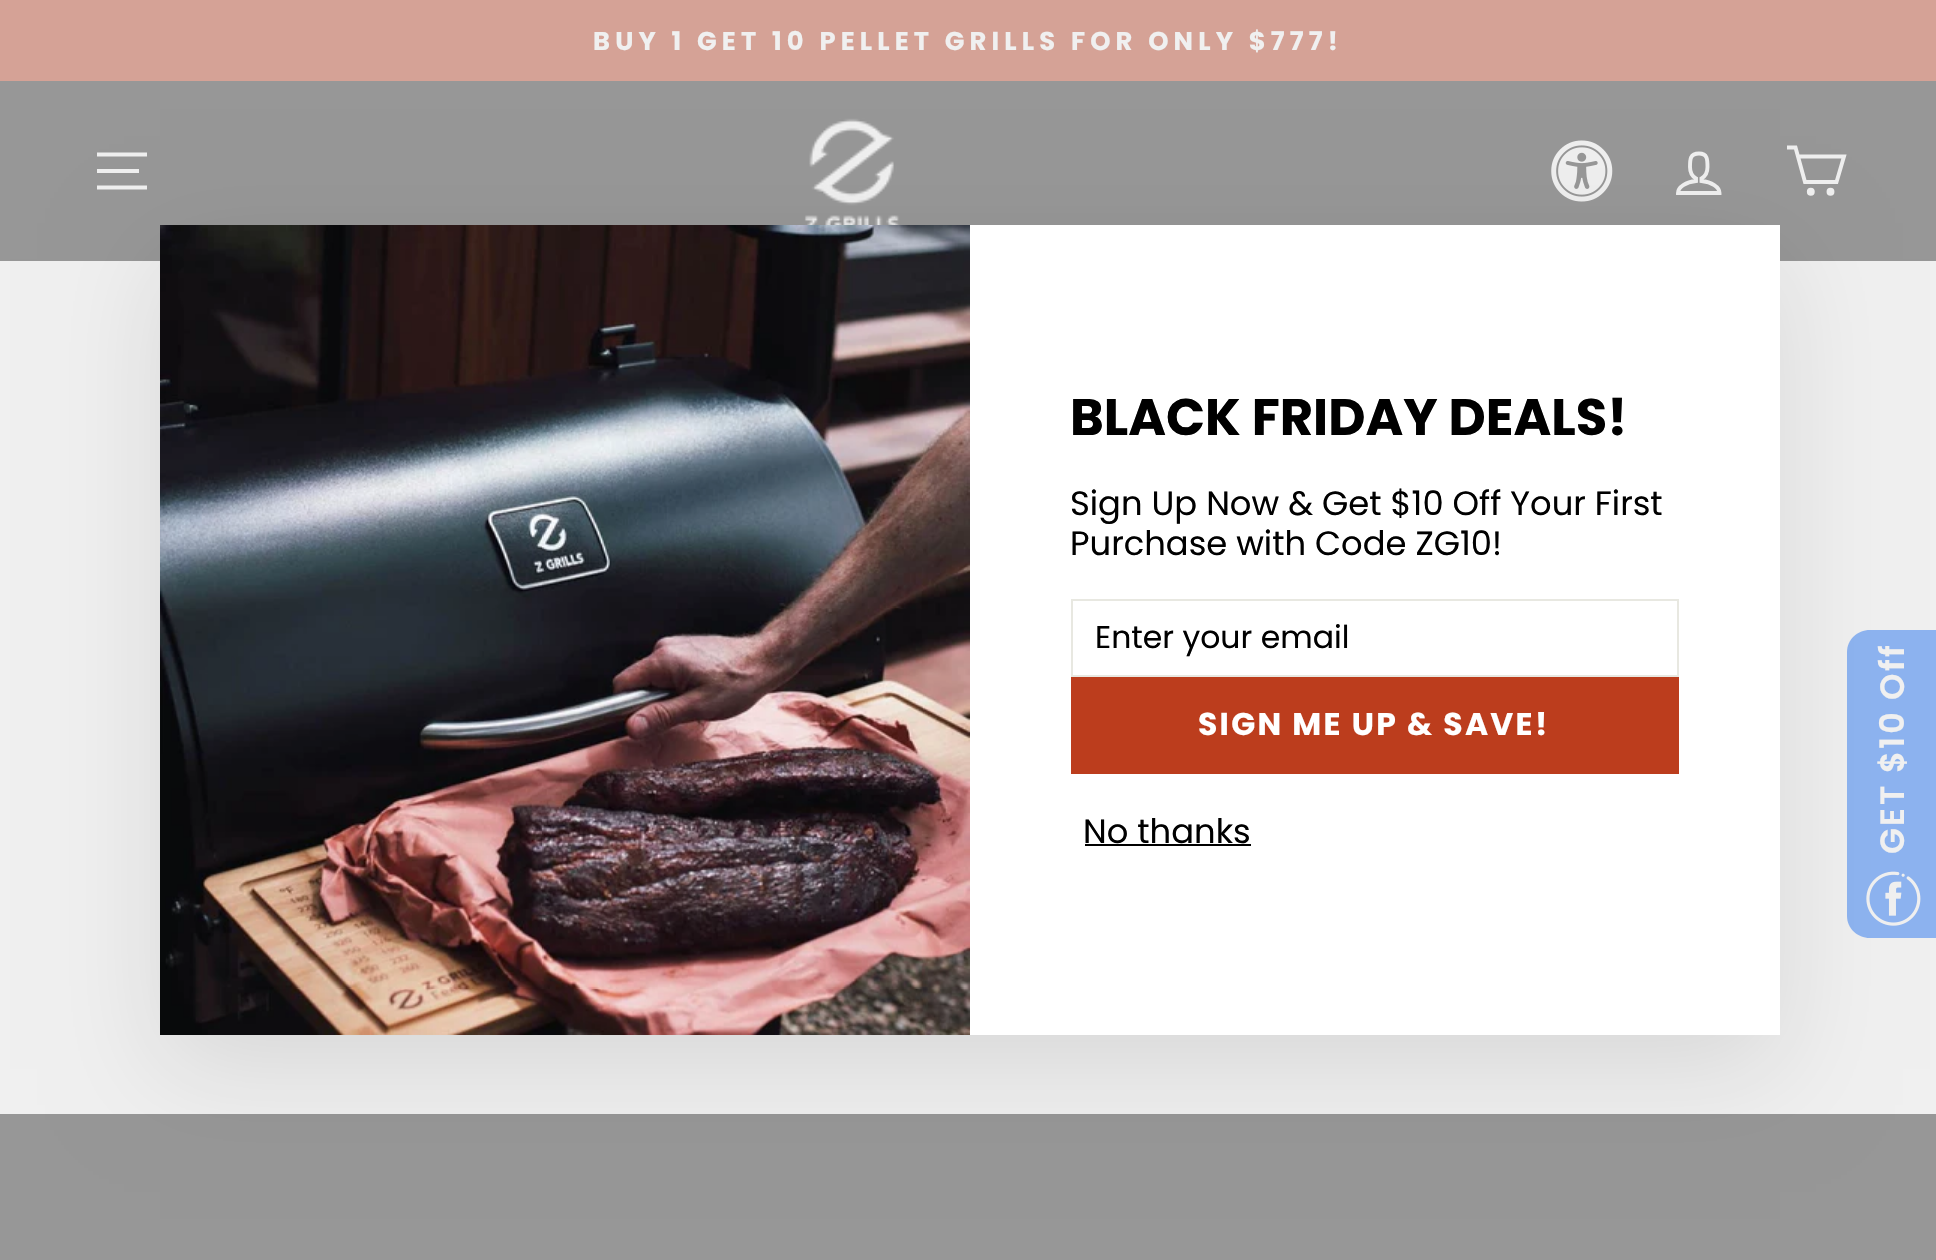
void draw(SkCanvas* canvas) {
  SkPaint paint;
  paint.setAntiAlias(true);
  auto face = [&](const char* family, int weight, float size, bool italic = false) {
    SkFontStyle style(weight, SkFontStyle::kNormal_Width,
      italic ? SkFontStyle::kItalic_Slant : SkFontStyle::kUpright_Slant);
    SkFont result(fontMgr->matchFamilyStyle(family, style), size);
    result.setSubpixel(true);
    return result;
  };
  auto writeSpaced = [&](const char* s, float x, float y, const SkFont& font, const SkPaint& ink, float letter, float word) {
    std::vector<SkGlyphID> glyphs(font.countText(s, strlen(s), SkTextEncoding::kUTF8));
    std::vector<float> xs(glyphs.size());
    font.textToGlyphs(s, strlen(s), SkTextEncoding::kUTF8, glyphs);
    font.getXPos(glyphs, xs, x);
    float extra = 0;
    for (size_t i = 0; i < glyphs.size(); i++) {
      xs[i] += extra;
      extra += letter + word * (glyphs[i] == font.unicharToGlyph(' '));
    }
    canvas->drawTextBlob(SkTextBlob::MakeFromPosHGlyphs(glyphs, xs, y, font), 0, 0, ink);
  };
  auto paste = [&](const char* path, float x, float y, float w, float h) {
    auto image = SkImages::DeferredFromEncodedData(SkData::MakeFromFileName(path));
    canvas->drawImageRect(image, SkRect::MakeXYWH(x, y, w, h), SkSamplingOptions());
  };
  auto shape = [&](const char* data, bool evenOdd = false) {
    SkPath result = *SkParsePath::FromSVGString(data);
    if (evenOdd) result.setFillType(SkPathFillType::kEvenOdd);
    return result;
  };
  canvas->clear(0xfff0f0f0);
  paint.setColor(0xffd5a296);
  canvas->drawRect(SkRect::MakeXYWH(0, 0, 1936, 81), paint);
  paint.setColor(0xff979797);
  canvas->drawRect(SkRect::MakeXYWH(0, 81, 1936, 180), paint);
  paint.setStroke(true);
  paint.setStrokeWidth(3.9f);
  paint.setColor(0xffefefef);
  canvas->drawPath(shape("M97 154.5H147M97 171H139M97 187.5H147"), paint);
  paste("img/1.png", 804, 118, 96, 107);
  paste("img/2.png", 1551, 140, 62, 62);
  canvas->drawPath(shape("M1701.5 181V178.5C1705 176.5 1707.5 172 1707.5 167C1707.5 159.5 1707.5 153.5 1699 153.5C1690 153.5 1690 159.5 1690 167C1690 172 1692.5 176.5 1696 178.5V181C1686 182 1678 187 1678 193H1719.5C1719.5 187 1711.5 182 1701.5 181Z"), paint);
  canvas->drawPath(shape("M1798 156.5H1844L1836.5 182H1805L1795.5 147.5H1787"), paint);
  canvas->drawCircle(1810.8f, 191.7f, 2, paint);
  canvas->drawCircle(1830.5f, 191.7f, 2, paint);
  paint.setStroke(false);
  paint.setColor(0xff979797);
  canvas->drawRect(SkRect::MakeXYWH(0, 1114, 1936, 146), paint);
  paint.setColor(0xff8db3f0);
  canvas->drawPath(shape("M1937 938H1870C1857 938 1847 928 1847 916V652C1847 640 1857 630 1870 630H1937Z"), paint);
  paste("img/4.png", 1866, 871, 55, 55);
  paint.setColor(0x1a000000);
  paint.setMaskFilter(SkMaskFilter::MakeBlur(kNormal_SkBlurStyle, 50.5f));
  canvas->drawRect(SkRect::MakeXYWH(160, 259, 1620, 810), paint);
  paint.setMaskFilter(nullptr);
  paint.setColor(0xffffffff);
  canvas->drawRect(SkRect::MakeXYWH(970, 225, 810, 810), paint);
  paste("img/3.png", 160, 225, 810, 810);
  paint.setStroke(true);
  paint.setStrokeWidth(2);
  paint.setColor(0xffe8e8e1);
  canvas->drawRect(SkRect::MakeXYWH(1072, 600, 606, 76), paint);
  paint.setStroke(false);
  paint.setColor(0xffbc3d1d);
  canvas->drawRect(SkRect::MakeXYWH(1071, 677, 608, 97), paint);
  paint.setColor(0xff000000);
  canvas->drawRect(SkRect::MakeXYWH(1085, 844, 166, 2), paint);
  auto f0 = face("Poppins", 700, 25.8f);
  paint.setColor(0xfff0f0f0);
  writeSpaced("BUY 1 GET 10 PELLET GRILLS FOR ONLY $777!", 593, 50, f0, paint, 5.15f, 0);
  auto f1 = face("Poppins", 700, 51.25f);
  paint.setColor(0xff000000);
  canvas->drawString("BLACK FRIDAY DEALS!", 1070, 435, f1, paint);
  auto f2 = face("Poppins", 400, 33.75f);
  canvas->drawString("Sign Up Now & Get $10 Off Your First", 1070, 515, f2, paint);
  canvas->drawString("Purchase with Code ZG10!", 1070, 555, f2, paint);
  auto f3 = face("Poppins", 400, 31.5f);
  canvas->drawString("Enter your email", 1095, 648, f3, paint);
  auto f4 = face("Poppins", 700, 31.5f);
  paint.setColor(0xffffffff);
  writeSpaced("SIGN ME UP & SAVE!", 1198, 735, f4, paint, 2.25f, 0);
  paint.setColor(0xff000000);
  canvas->drawString("No thanks", 1083, 843, f2, paint);
  auto f5 = face("Poppins", 600, 33.75f);
  paint.setColor(0xfff0f0f0);
  canvas->save();
  canvas->rotate(-90, 1904, 657);
  writeSpaced("f", 1904, 657, f5, paint, 2.25f, 0);
  canvas->restore();
  canvas->save();
  canvas->rotate(-90, 1904, 671);
  writeSpaced("f", 1904, 671, f5, paint, 2.25f, 0);
  canvas->restore();
  canvas->save();
  canvas->rotate(-90, 1904, 700);
  writeSpaced("O", 1904, 700, f5, paint, 2.25f, 0);
  canvas->restore();
  canvas->save();
  canvas->rotate(-90, 1904, 734);
  writeSpaced("0", 1904, 734, f5, paint, 2.25f, 0);
  canvas->restore();
  canvas->save();
  canvas->rotate(-90, 1904, 749);
  writeSpaced("1", 1904, 749, f5, paint, 2.25f, 0);
  canvas->restore();
  canvas->save();
  canvas->rotate(-90, 1904, 773);
  writeSpaced("$", 1904, 773, f5, paint, 2.25f, 0);
  canvas->restore();
  canvas->save();
  canvas->rotate(-90, 1904, 805);
  writeSpaced("T", 1904, 805, f5, paint, 2.25f, 0);
  canvas->restore();
  canvas->save();
  canvas->rotate(-90, 1904, 826);
  writeSpaced("E", 1904, 826, f5, paint, 2.25f, 0);
  canvas->restore();
  canvas->save();
  canvas->rotate(-90, 1904, 854);
  writeSpaced("G", 1904, 854, f5, paint, 2.25f, 0);
  canvas->restore();
}
